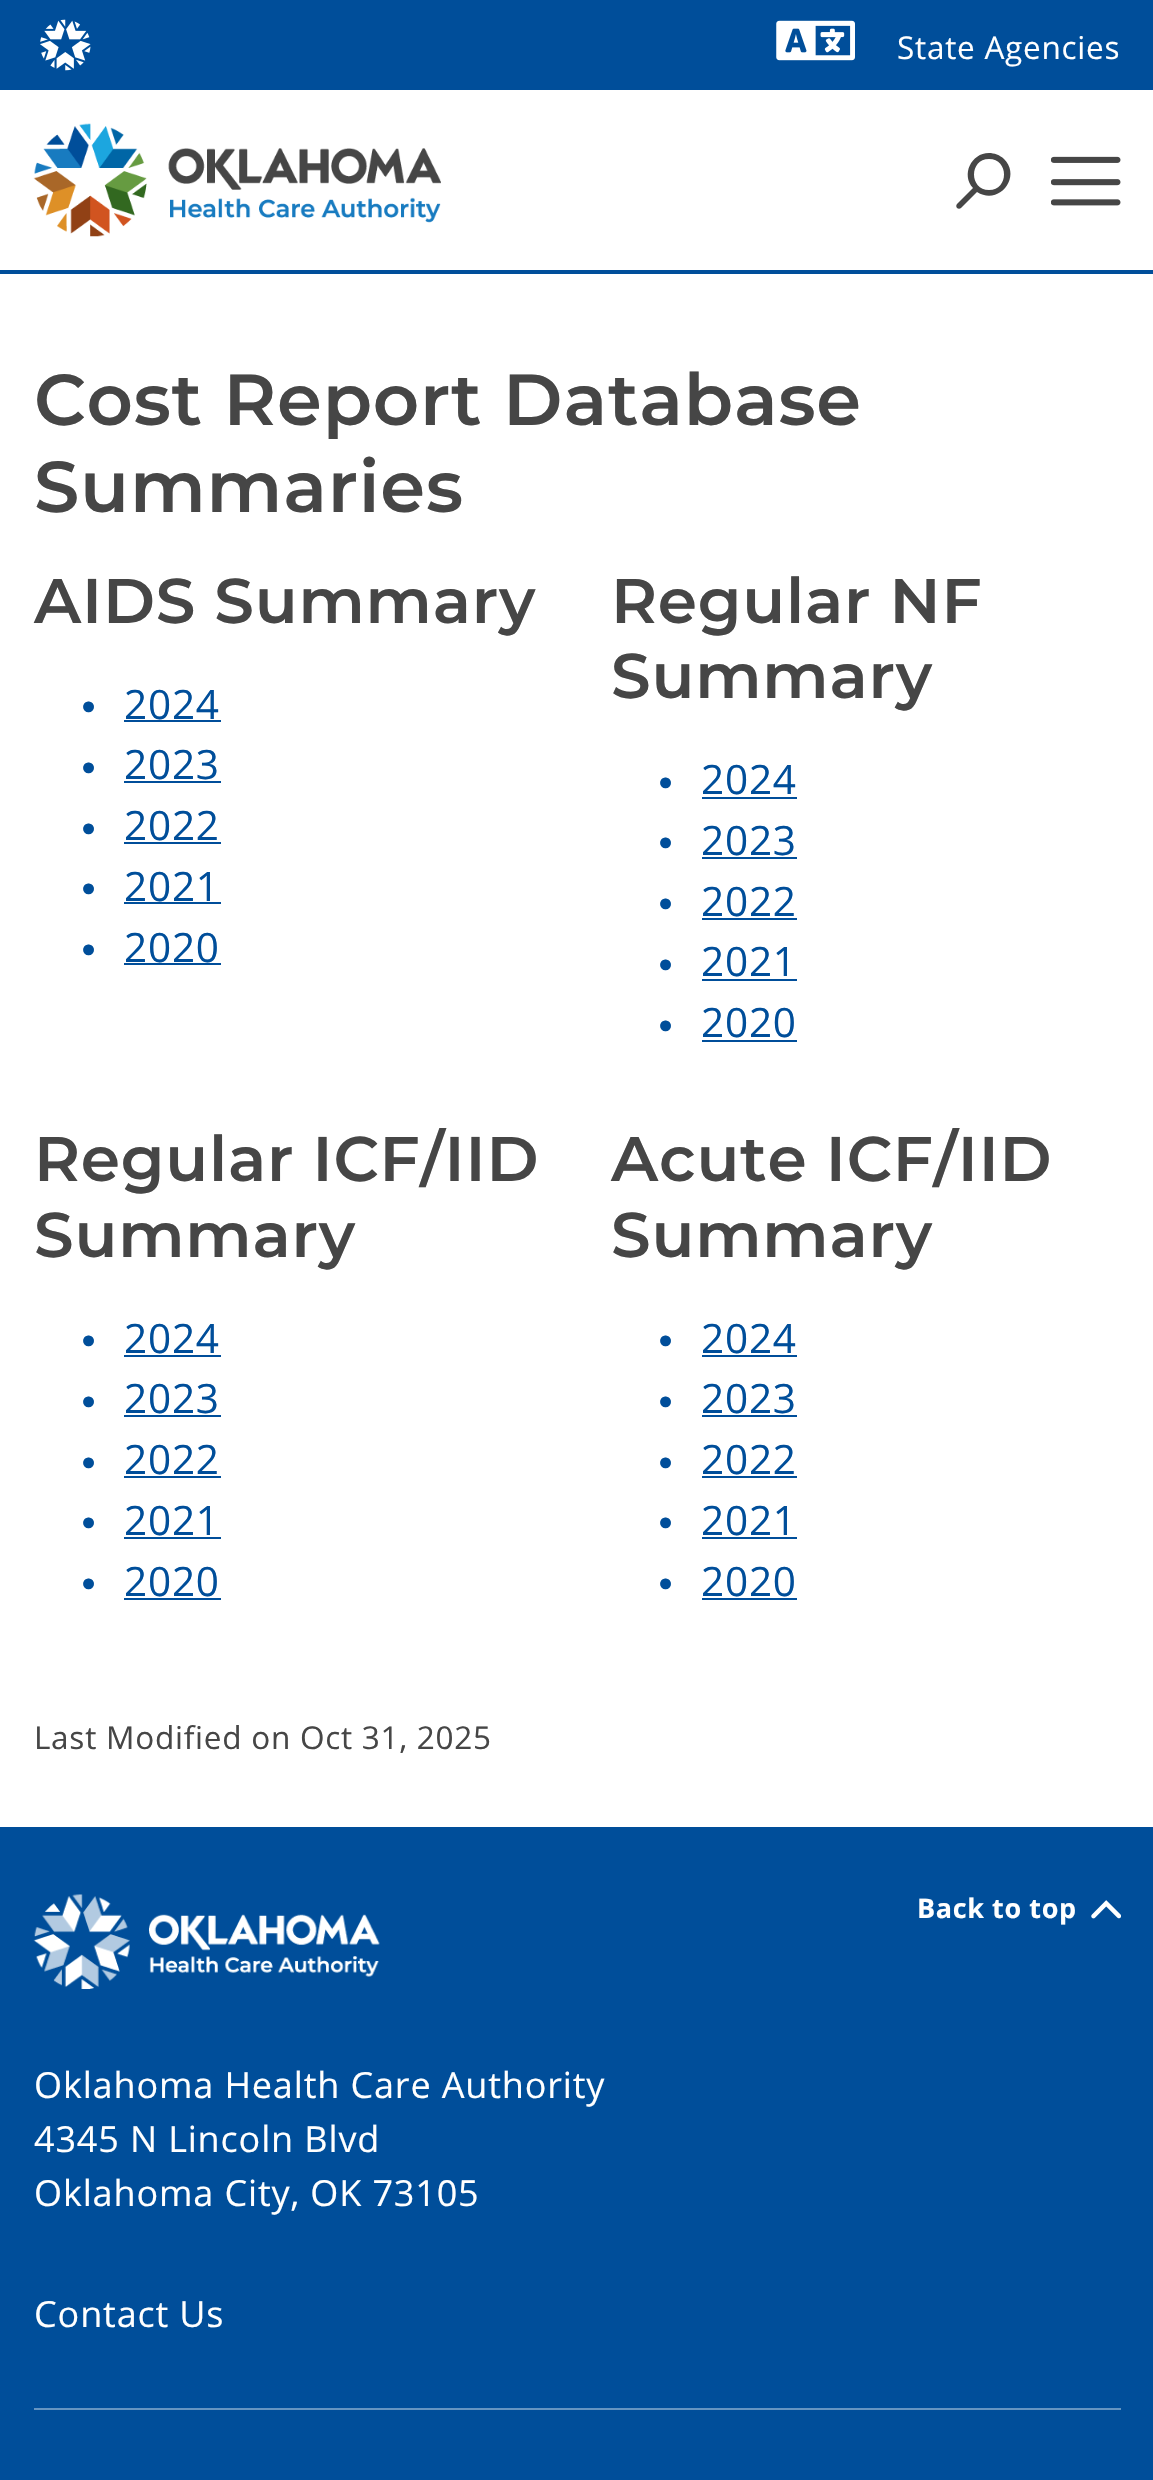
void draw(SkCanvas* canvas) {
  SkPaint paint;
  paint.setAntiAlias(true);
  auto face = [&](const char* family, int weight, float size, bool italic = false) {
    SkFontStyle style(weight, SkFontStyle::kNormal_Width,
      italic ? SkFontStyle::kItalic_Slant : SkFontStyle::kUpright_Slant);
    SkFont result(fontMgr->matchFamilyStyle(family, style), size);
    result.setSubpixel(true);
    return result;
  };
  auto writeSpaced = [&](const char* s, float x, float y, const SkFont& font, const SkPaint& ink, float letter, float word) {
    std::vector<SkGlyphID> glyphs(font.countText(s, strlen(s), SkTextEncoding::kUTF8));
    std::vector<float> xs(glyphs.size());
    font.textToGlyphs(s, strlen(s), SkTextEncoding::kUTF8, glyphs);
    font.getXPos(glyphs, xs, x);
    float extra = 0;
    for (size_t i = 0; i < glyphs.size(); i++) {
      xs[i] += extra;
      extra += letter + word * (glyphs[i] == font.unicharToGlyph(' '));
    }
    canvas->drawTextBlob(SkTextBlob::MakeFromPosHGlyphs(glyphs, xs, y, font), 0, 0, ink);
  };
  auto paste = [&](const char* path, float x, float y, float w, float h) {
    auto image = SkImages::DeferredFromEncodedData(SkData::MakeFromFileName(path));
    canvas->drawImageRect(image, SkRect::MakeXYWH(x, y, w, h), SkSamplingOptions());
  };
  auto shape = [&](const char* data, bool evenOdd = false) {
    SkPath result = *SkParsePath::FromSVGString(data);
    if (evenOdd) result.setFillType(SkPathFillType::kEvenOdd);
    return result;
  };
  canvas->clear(0xffffffff);
  paint.setColor(0xff004e9a);
  canvas->drawRect(SkRect::MakeXYWH(0, 0, 1153, 90), paint);
  paste("img/1.png", 40, 19, 51, 52);
  paste("img/2.png", 776, 20, 79, 41);
  canvas->drawRect(SkRect::MakeXYWH(0, 270, 1153, 4), paint);
  paste("img/3.png", 33, 123, 408, 114);
  paint.setColor(0xff464646);
  canvas->drawPath(shape("M989 153C971 153 961 175 973 188L957 204C956 205 956 207 957 208C958 209 960 209 961 208L977 192C999 206 1022 177 1004 159C1000 155 994 153 989 153ZM989 190C969 190 969 159 989 159C1009 159 1009 190 989 190Z"), paint);
  paste("img/4.png", 1051, 156, 70, 50);
  {
    const struct { float x, y, w, h; SkColor color; } items[] = {
      {124, 720, 97, 2, 0xff004e9a},
      {124, 781, 97, 2, 0xff004e9a},
      {124, 842, 97, 2, 0xff004e9a},
      {124, 902, 97, 2, 0xff004e9a},
      {124, 963, 97, 2, 0xff004e9a},
      {702, 797, 95, 2, 0xff004e9a},
      {702, 857, 95, 2, 0xff004e9a},
      {702, 918, 95, 2, 0xff004e9a},
      {702, 979, 95, 2, 0xff004e9a},
      {702, 1040, 95, 2, 0xff004e9a},
      {124, 1355, 97, 2, 0xff004e9a},
      {124, 1415, 97, 2, 0xff004e9a},
      {124, 1476, 97, 2, 0xff004e9a},
      {124, 1537, 97, 2, 0xff004e9a},
      {124, 1598, 97, 2, 0xff004e9a},
      {702, 1355, 95, 2, 0xff004e9a},
      {702, 1415, 95, 2, 0xff004e9a},
      {702, 1476, 95, 2, 0xff004e9a},
      {702, 1537, 95, 2, 0xff004e9a},
      {702, 1598, 95, 2, 0xff004e9a},
      {0, 1827, 1153, 653, 0xff004e9a},
    };
    for (auto [x, y, w, h, color] : items) {
      paint.setColor(color);
      canvas->drawRect(SkRect::MakeXYWH(x, y, w, h), paint);
    }
  }
  paste("img/5.png", 33, 1894, 347, 95);
  paste("img/6.png", 1091, 1900, 30, 19);
  paint.setColor(0xff6695c2);
  canvas->drawRect(SkRect::MakeXYWH(34, 2408, 1087, 2), paint);
  auto f0 = face("Open Sans", 400, 31.5f);
  paint.setColor(0xffffffff);
  writeSpaced("State Agencies", 897, 59, f0, paint, 0.75f, 0);
  auto f1 = face("Montserrat", 600, 72);
  paint.setColor(0xff464646);
  writeSpaced("Cost Report Database", 34, 425, f1, paint, 0.8f, 0);
  writeSpaced("Summaries", 34, 512, f1, paint, 0.8f, 0);
  auto f2 = face("Montserrat", 600, 63);
  writeSpaced("AIDS Summary", 34, 623, f2, paint, 0.8f, 0);
  auto f3 = face("Liberation Serif", 400, 25);
  paint.setColor(0xff004e9a);
  writeSpaced("●", 81, 714, f3, paint, 0.8f, 0);
  auto f4 = face("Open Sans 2", 400, 40.5f);
  writeSpaced("2024", 124, 719, f4, paint, 0.8f, 0);
  writeSpaced("●", 81, 775, f3, paint, 0.8f, 0);
  writeSpaced("2023", 124, 779, f4, paint, 0.8f, 0);
  writeSpaced("●", 81, 836, f3, paint, 0.8f, 0);
  writeSpaced("2022", 124, 840, f4, paint, 0.8f, 0);
  writeSpaced("●", 81, 896, f3, paint, 0.8f, 0);
  writeSpaced("2021", 124, 901, f4, paint, 0.8f, 0);
  writeSpaced("●", 81, 957, f3, paint, 0.8f, 0);
  writeSpaced("2020", 124, 962, f4, paint, 0.8f, 0);
  paint.setColor(0xff464646);
  writeSpaced("Regular NF", 611, 623, f2, paint, 0.8f, 0);
  writeSpaced("Summary", 611, 698, f2, paint, 0.8f, 0);
  paint.setColor(0xff004e9a);
  writeSpaced("●", 658, 790, f3, paint, 0.8f, 0);
  writeSpaced("2024", 701, 794, f4, paint, 0.8f, 0);
  writeSpaced("●", 658, 850, f3, paint, 0.8f, 0);
  writeSpaced("2023", 701, 855, f4, paint, 0.8f, 0);
  writeSpaced("●", 658, 911, f3, paint, 0.8f, 0);
  writeSpaced("2022", 701, 916, f4, paint, 0.8f, 0);
  writeSpaced("●", 658, 972, f3, paint, 0.8f, 0);
  writeSpaced("2021", 701, 976, f4, paint, 0.8f, 0);
  writeSpaced("●", 658, 1033, f3, paint, 0.8f, 0);
  writeSpaced("2020", 701, 1037, f4, paint, 0.8f, 0);
  paint.setColor(0xff464646);
  writeSpaced("Regular ICF/IID", 34, 1181, f2, paint, 0.8f, 0);
  writeSpaced("Summary", 34, 1257, f2, paint, 0.8f, 0);
  paint.setColor(0xff004e9a);
  writeSpaced("●", 81, 1348, f3, paint, 0.8f, 0);
  writeSpaced("2024", 124, 1353, f4, paint, 0.8f, 0);
  writeSpaced("●", 81, 1409, f3, paint, 0.8f, 0);
  writeSpaced("2023", 124, 1413, f4, paint, 0.8f, 0);
  writeSpaced("●", 81, 1470, f3, paint, 0.8f, 0);
  writeSpaced("2022", 124, 1474, f4, paint, 0.8f, 0);
  writeSpaced("●", 81, 1530, f3, paint, 0.8f, 0);
  writeSpaced("2021", 124, 1535, f4, paint, 0.8f, 0);
  writeSpaced("●", 81, 1591, f3, paint, 0.8f, 0);
  writeSpaced("2020", 124, 1596, f4, paint, 0.8f, 0);
  paint.setColor(0xff464646);
  writeSpaced("Acute ICF/IID", 611, 1181, f2, paint, 0.8f, 0);
  writeSpaced("Summary", 611, 1257, f2, paint, 0.8f, 0);
  paint.setColor(0xff004e9a);
  writeSpaced("●", 658, 1348, f3, paint, 0.8f, 0);
  writeSpaced("2024", 701, 1353, f4, paint, 0.8f, 0);
  writeSpaced("●", 658, 1409, f3, paint, 0.8f, 0);
  writeSpaced("2023", 701, 1413, f4, paint, 0.8f, 0);
  writeSpaced("●", 658, 1470, f3, paint, 0.8f, 0);
  writeSpaced("2022", 701, 1474, f4, paint, 0.8f, 0);
  writeSpaced("●", 658, 1530, f3, paint, 0.8f, 0);
  writeSpaced("2021", 701, 1535, f4, paint, 0.8f, 0);
  writeSpaced("●", 658, 1591, f3, paint, 0.8f, 0);
  writeSpaced("2020", 701, 1596, f4, paint, 0.8f, 0);
  paint.setColor(0xff464646);
  writeSpaced("Last Modified on Oct 31, 2025", 34, 1749, f0, paint, 0.75f, 0);
  auto f5 = face("Open Sans", 700, 27);
  paint.setColor(0xffffffff);
  writeSpaced("Back to top", 917, 1918, f5, paint, 0.6f, 0);
  auto f6 = face("Open Sans", 400, 36);
  {
    const struct { const char* s; float x, y; } items[] = {
      {"Oklahoma Health Care Authority", 34, 2098},
      {"4345 N Lincoln Blvd", 34, 2152},
      {"Oklahoma City, OK 73105", 34, 2206},
      {"Contact Us", 34, 2327},
    };
    for (auto [s, x, y] : items) {
      writeSpaced(s, x, y, f6, paint, 0.85f, 0);
    }
  }
}
